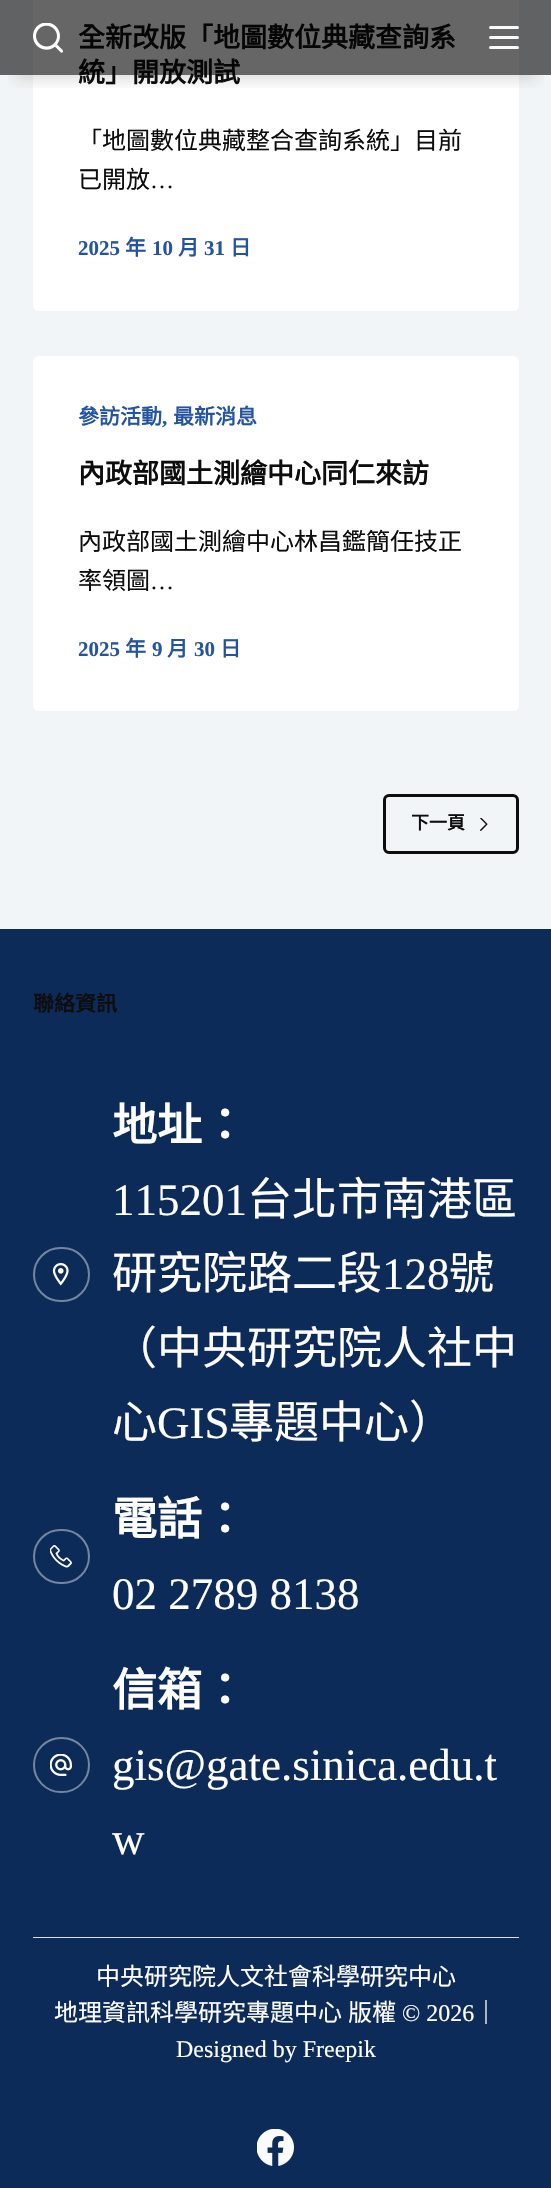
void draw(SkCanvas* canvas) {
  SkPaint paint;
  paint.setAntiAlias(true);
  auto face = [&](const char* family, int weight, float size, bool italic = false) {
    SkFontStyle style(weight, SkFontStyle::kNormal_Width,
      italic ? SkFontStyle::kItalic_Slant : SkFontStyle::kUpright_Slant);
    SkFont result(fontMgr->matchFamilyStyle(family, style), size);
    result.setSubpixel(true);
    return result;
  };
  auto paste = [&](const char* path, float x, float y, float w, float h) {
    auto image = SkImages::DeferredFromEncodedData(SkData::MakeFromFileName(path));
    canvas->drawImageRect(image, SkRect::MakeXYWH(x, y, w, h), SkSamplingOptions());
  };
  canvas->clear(0xfff2f5f7);
  paint.setColor(0xffffffff);
  canvas->drawRoundRect(SkRect::MakeXYWH(33, -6, 486, 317), 6, 6, paint);
  canvas->save();
  canvas->clipRect(SkRect::MakeXYWH(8, 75, 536, 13));
  paint.setColor(0x26241915);
  paint.setMaskFilter(SkMaskFilter::MakeBlur(kNormal_SkBlurStyle, 7.5f));
  canvas->drawRect(SkRect::MakeXYWH(15, 35, 522, 45), paint);
  paint.setMaskFilter(nullptr);
  canvas->restore();
  paint.setColor(0xffffffff);
  canvas->drawRoundRect(SkRect::MakeXYWH(33, 356, 486, 355), 6, 6, paint);
  paint.setStroke(true);
  paint.setStrokeWidth(3);
  paint.setColor(0xff0d0d0d);
  canvas->drawRoundRect(SkRect::MakeXYWH(384.5f, 795.5f, 133, 57), 4.5f, 4.5f, paint);
  paste("img/2.png", 480, 818, 8, 13);
  paint.setStroke(false);
  paint.setColor(0xff0d2b59);
  canvas->drawRect(SkRect::MakeXYWH(0, 929, 551, 1259), paint);
  paint.setColor(0xffdddddd);
  canvas->drawRect(SkRect::MakeXYWH(33, 1937, 486, 1), paint);
  paint.setStroke(true);
  paint.setStrokeWidth(2);
  paint.setColor(0xff74859f);
  canvas->drawRoundRect(SkRect::MakeXYWH(34, 1248, 55, 53), 26.5f, 26.5f, paint);
  paste("img/3.png", 52, 1263, 17, 23);
  canvas->drawRoundRect(SkRect::MakeXYWH(34, 1530, 55, 53), 26.5f, 26.5f, paint);
  paste("img/4.png", 50, 1545, 22, 23);
  canvas->drawRoundRect(SkRect::MakeXYWH(34, 1738, 55, 54), 27, 27, paint);
  paste("img/5.png", 50, 1754, 22, 22);
  paste("img/6.png", 257, 2129, 37, 37);
  auto f0 = face("Noto Sans CJK TC", 700, 27);
  paint.setStroke(false);
  paint.setColor(0xff0d0d0d);
  canvas->drawString("全新改版「地圖數位典藏查詢系", 78, 47, f0, paint);
  canvas->drawString("統」開放測試", 78, 82, f0, paint);
  paint.setColor(0x99000000);
  canvas->drawRect(SkRect::MakeXYWH(0, 0, 551, 75), paint);
  paint.setColor(0xfffafbfc);
  canvas->drawRoundRect(SkRect::MakeXYWH(489, 46, 30, 3), 1.5f, 1.5f, paint);
  canvas->drawRoundRect(SkRect::MakeXYWH(489, 36, 30, 3), 1.5f, 1.5f, paint);
  canvas->drawRoundRect(SkRect::MakeXYWH(489, 26, 30, 3), 1.5f, 1.5f, paint);
  paste("img/1.png", 33, 23, 30, 30);
  auto f1 = face("Noto Sans CJK TC", 400, 24);
  paint.setColor(0xff0d0d0d);
  canvas->drawString("「地圖數位典藏整合查詢系統」目前", 78, 149, f1, paint);
  canvas->drawString("已開放", 78, 188, f1, paint);
  auto f2 = face("Liberation Serif", 400, 24);
  canvas->drawString("…", 150, 188, f2, paint);
  auto f3 = face("Liberation Serif", 700, 21);
  paint.setColor(0xff2454a0);
  canvas->drawString("2025", 78, 255, f3, paint);
  auto f4 = face("Noto Sans CJK TC", 700, 21);
  canvas->drawString("年", 125, 255, f4, paint);
  canvas->drawString("10", 152, 255, f3, paint);
  canvas->drawString("月", 178, 255, f4, paint);
  canvas->drawString("31", 204, 255, f3, paint);
  canvas->drawString("日", 230, 255, f4, paint);
  canvas->drawString("參訪活動", 78, 424, f4, paint);
  canvas->drawString(",", 162, 424, f3, paint);
  canvas->drawString("最新消息", 173, 424, f4, paint);
  paint.setColor(0xff0d0d0d);
  canvas->drawString("內政部國土測繪中心同仁來訪", 78, 483, f0, paint);
  canvas->drawString("內政部國土測繪中心林昌鑑簡任技正", 78, 550, f1, paint);
  canvas->drawString("率領圖", 78, 589, f1, paint);
  canvas->drawString("…", 150, 589, f2, paint);
  paint.setColor(0xff2454a0);
  canvas->drawString("2025", 78, 656, f3, paint);
  canvas->drawString("年", 125, 656, f4, paint);
  canvas->drawString("9", 152, 656, f3, paint);
  canvas->drawString("月", 167, 656, f4, paint);
  canvas->drawString("30", 194, 656, f3, paint);
  canvas->drawString("日", 220, 656, f4, paint);
  auto f5 = face("Noto Sans CJK TC", 700, 18);
  paint.setColor(0xff0d0d0d);
  canvas->drawString("下一頁", 411, 829, f5, paint);
  canvas->drawString("聯絡資訊", 33, 1011, f4, paint);
  auto f6 = face("Noto Sans CJK TC", 700, 45);
  paint.setColor(0xffffffff);
  canvas->drawString("地址：", 112, 1141, f6, paint);
  auto f7 = face("Liberation Serif", 400, 45);
  canvas->drawString("115201", 112, 1215, f7, paint);
  auto f8 = face("Noto Sans CJK TC", 400, 45);
  canvas->drawString("台北市南港區", 247, 1215, f8, paint);
  canvas->drawString("研究院路二段", 112, 1289, f8, paint);
  canvas->drawString("128", 382, 1289, f7, paint);
  {
    const struct { const char* s; float x, y; } items[] = {
      {"號", 449, 1289},
      {"（中央研究院人社中", 112, 1364},
      {"心", 112, 1438},
    };
    for (auto [s, x, y] : items) {
      canvas->drawString(s, x, y, f8, paint);
    }
  }
  canvas->drawString("GIS", 157, 1438, f7, paint);
  canvas->drawString("專題中心）", 229, 1438, f8, paint);
  canvas->drawString("電話：", 112, 1535, f6, paint);
  canvas->drawString("02 2789 8138", 112, 1609, f7, paint);
  canvas->drawString("信箱：", 112, 1706, f6, paint);
  canvas->drawString("gis@gate.sinica.edu.t", 112, 1780, f7, paint);
  canvas->drawString("w", 112, 1854, f7, paint);
  {
    const struct { const char* s; float x, y; } items[] = {
      {"中央研究院人文社會科學研究中心", 96, 1985},
      {"地理資訊科學研究專題中心", 54, 2021},
      {"版權", 348, 2021},
    };
    for (auto [s, x, y] : items) {
      canvas->drawString(s, x, y, f1, paint);
    }
  }
  canvas->drawString("© 2026", 402, 2021, f2, paint);
  canvas->drawString("｜", 474, 2021, f1, paint);
  canvas->drawString("Designed by Freepik", 176, 2057, f2, paint);
}
